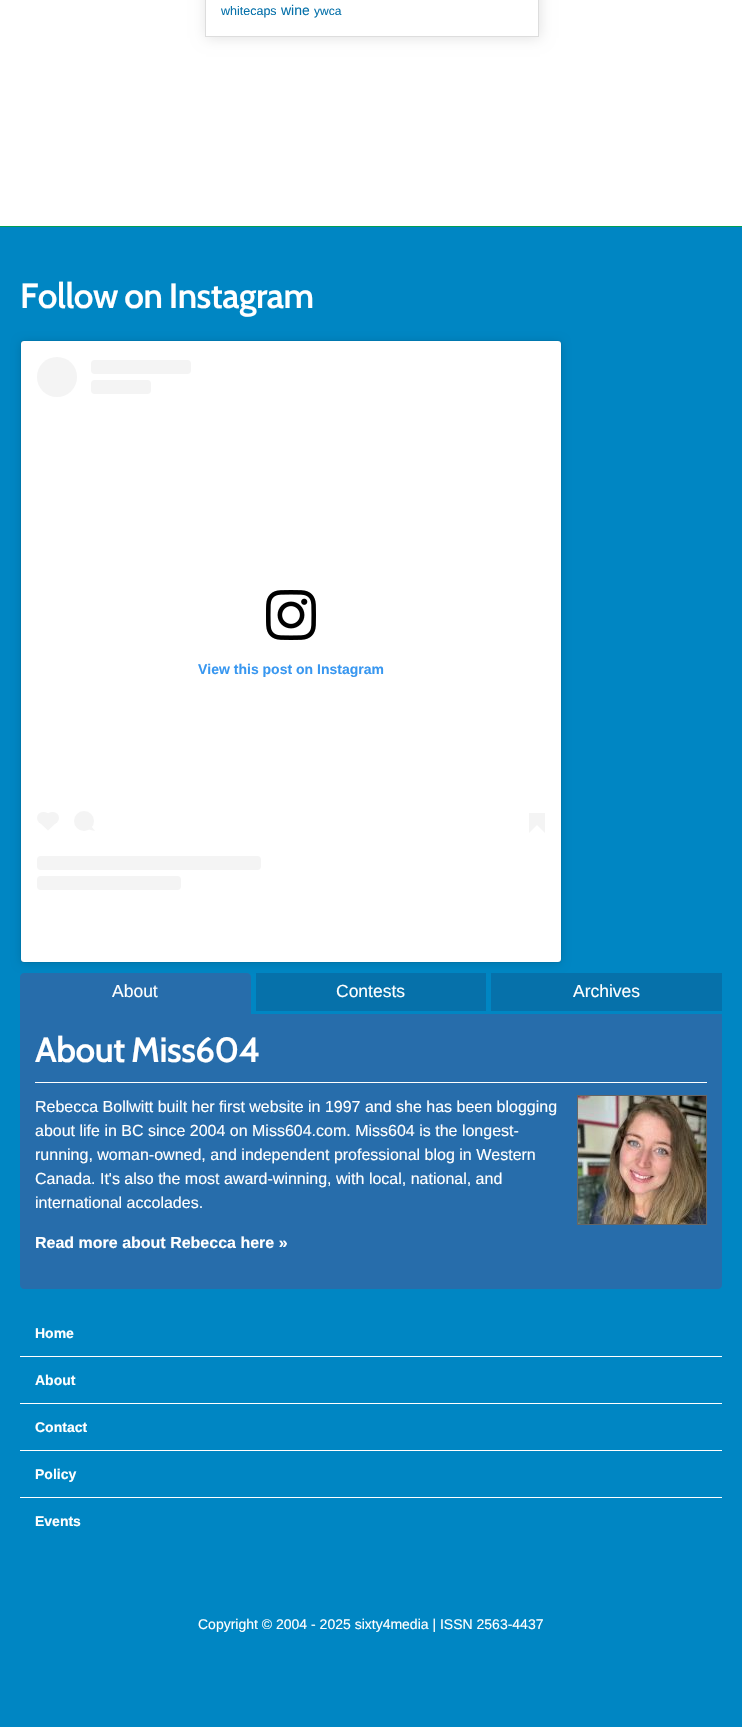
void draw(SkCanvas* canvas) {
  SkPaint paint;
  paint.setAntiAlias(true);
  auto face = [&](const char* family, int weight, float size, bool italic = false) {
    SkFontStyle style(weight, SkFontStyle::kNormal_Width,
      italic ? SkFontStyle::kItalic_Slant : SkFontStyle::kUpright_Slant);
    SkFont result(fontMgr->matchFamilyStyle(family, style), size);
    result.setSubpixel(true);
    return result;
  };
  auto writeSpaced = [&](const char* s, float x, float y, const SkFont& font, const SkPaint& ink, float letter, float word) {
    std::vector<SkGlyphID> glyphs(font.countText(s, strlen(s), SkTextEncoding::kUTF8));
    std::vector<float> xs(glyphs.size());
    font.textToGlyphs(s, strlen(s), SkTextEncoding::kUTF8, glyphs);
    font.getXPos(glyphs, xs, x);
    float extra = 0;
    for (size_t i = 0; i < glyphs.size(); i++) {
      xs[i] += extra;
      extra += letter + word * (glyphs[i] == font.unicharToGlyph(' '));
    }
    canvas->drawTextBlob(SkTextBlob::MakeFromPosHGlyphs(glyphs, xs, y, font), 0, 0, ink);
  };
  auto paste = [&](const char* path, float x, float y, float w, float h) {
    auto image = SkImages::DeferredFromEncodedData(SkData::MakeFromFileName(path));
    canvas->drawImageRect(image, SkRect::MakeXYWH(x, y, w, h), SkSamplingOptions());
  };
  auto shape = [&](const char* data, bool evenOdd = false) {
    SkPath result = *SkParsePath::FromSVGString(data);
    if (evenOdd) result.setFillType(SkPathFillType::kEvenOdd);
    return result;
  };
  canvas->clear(0xffffffff);
  canvas->save();
  canvas->clipPath(shape("M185 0H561V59H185ZM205-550H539V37H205Z", true), true);
  paint.setColor(0xffe2e2e2);
  paint.setMaskFilter(SkMaskFilter::MakeBlur(kNormal_SkBlurStyle, 6.5f));
  canvas->drawRect(SkRect::MakeXYWH(206, -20, 334, 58), paint);
  paint.setMaskFilter(nullptr);
  canvas->restore();
  paint.setStroke(true);
  paint.setStrokeWidth(1);
  paint.setColor(0xffdddddd);
  canvas->drawRect(SkRect::MakeXYWH(205.5f, -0.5f, 333, 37), paint);
  paint.setStroke(false);
  paint.setColor(0xff0086c3);
  canvas->drawRect(SkRect::MakeXYWH(0, 227, 742, 1500), paint);
  paint.setColor(0xff019e54);
  canvas->drawRect(SkRect::MakeXYWH(0, 226, 742, 1), paint);
  paint.setColor(0x26000000);
  paint.setMaskFilter(SkMaskFilter::MakeBlur(kNormal_SkBlurStyle, 5));
  canvas->drawRoundRect(SkRect::MakeXYWH(21, 342, 540, 621), 3, 3, paint);
  paint.setMaskFilter(nullptr);
  paint.setColor(0x80000000);
  paint.setMaskFilter(SkMaskFilter::MakeBlur(kNormal_SkBlurStyle, 0.5f));
  canvas->drawRoundRect(SkRect::MakeXYWH(21, 341, 540, 621), 3, 3, paint);
  paint.setMaskFilter(nullptr);
  paint.setColor(0xffffffff);
  canvas->drawRoundRect(SkRect::MakeXYWH(21, 341, 540, 621), 3, 3, paint);
  paint.setColor(0xfff4f4f4);
  canvas->drawCircle(57, 377, 20, paint);
  canvas->drawRoundRect(SkRect::MakeXYWH(91, 360, 100, 14), 4, 4, paint);
  canvas->drawRoundRect(SkRect::MakeXYWH(91, 380, 60, 14), 4, 4, paint);
  paste("img/1.png", 266, 590, 50, 50);
  canvas->drawRoundRect(SkRect::MakeXYWH(37, 812, 13, 12), 6, 6, paint);
  canvas->drawPath(shape("M39 822L48 813L57 822L48 830.5Z"), paint);
  canvas->drawRoundRect(SkRect::MakeXYWH(46, 812, 13, 12), 6, 6, paint);
  canvas->drawCircle(84, 821, 10, paint);
  canvas->drawPath(shape("M89 829.5L91 826L95 831Z"), paint);
  canvas->drawRect(SkRect::MakeXYWH(529, 813, 16, 12), paint);
  canvas->drawPath(shape("M529 825H537L529 833Z"), paint);
  canvas->drawPath(shape("M537 825H545V833Z"), paint);
  canvas->drawRoundRect(SkRect::MakeXYWH(37, 856, 224, 14), 4, 4, paint);
  canvas->drawRoundRect(SkRect::MakeXYWH(37, 876, 144, 14), 4, 4, paint);
  paint.setColor(0xff276dab);
  canvas->drawRect(SkRect::MakeXYWH(20, 1014, 702, 3), paint);
  canvas->drawPath(shape("M24 973H247C249 973 251 975 251 977V1014H20V977C20 975 22 973 24 973Z"), paint);
  paint.setColor(0xff0671aa);
  canvas->drawRect(SkRect::MakeXYWH(256, 973, 230, 38), paint);
  canvas->drawRect(SkRect::MakeXYWH(491, 973, 231, 38), paint);
  paint.setColor(0xff276dab);
  canvas->drawPath(shape("M20 1017H722V1285C722 1287 720 1289 718 1289H24C22 1289 20 1287 20 1285Z"), paint);
  paint.setColor(0xffffffff);
  canvas->drawRect(SkRect::MakeXYWH(35, 1082, 672, 1), paint);
  paint.setStroke(true);
  paint.setColor(0xff666666);
  canvas->drawRect(SkRect::MakeXYWH(577.5f, 1095.5f, 129, 129), paint);
  paste("img/2.png", 578, 1096, 128, 128);
  paint.setStroke(false);
  {
    const struct { float x, y, w, h; SkColor color; } items[] = {
      {20, 1356, 702, 1, 0xffffffff},
      {20, 1403, 702, 1, 0xffffffff},
      {20, 1450, 702, 1, 0xffffffff},
      {20, 1497, 702, 1, 0xffffffff},
    };
    for (auto [x, y, w, h, color] : items) {
      paint.setColor(color);
      canvas->drawRect(SkRect::MakeXYWH(x, y, w, h), paint);
    }
  }
  auto f0 = face("Liberation Sans", 400, 12.5f);
  paint.setColor(0xff0671aa);
  canvas->drawString("whitecaps", 221, 15, f0, paint);
  auto f1 = face("Liberation Sans", 400, 14);
  canvas->drawString("wine", 281, 15, f1, paint);
  auto f2 = face("Liberation Sans", 400, 12);
  canvas->drawString("ywca", 314, 15, f2, paint);
  auto f3 = face("Cabin", 600, 35);
  paint.setColor(0xffffffff);
  writeSpaced("Follow on Instagram", 20, 308, f3, paint, -0.5f, -1);
  auto f4 = face("Liberation Sans", 700, 14);
  paint.setColor(0xff3897f0);
  canvas->drawString("View this post on Instagram", 198, 674, f4, paint);
  auto f5 = face("Liberation Sans", 400, 17.5f);
  paint.setColor(0xffffffff);
  {
    const struct { const char* s; float x, y; } items[] = {
      {"About", 112, 997},
      {"Contests", 336, 997},
      {"Archives", 573, 997},
    };
    for (auto [s, x, y] : items) {
      canvas->drawString(s, x, y, f5, paint);
    }
  }
  writeSpaced("About Miss604", 35, 1062, f3, paint, -0.5f, -1);
  auto f6 = face("Liberation Sans", 400, 16);
  {
    const struct { const char* s; float x, y; } items[] = {
      {"Rebecca Bollwitt built her first website in 1997 and she has been blogging", 35, 1112},
      {"about life in BC since 2004 on Miss604.com. Miss604 is the longest-", 35, 1136},
      {"running, woman-owned, and independent professional blog in Western", 35, 1160},
      {"Canada. It's also the most award-winning, with local, national, and", 35, 1184},
      {"international accolades.", 35, 1208},
    };
    for (auto [s, x, y] : items) {
      canvas->drawString(s, x, y, f6, paint);
    }
  }
  auto f7 = face("Liberation Sans", 700, 16);
  canvas->drawString("Read more about Rebecca here »", 35, 1248, f7, paint);
  {
    const struct { const char* s; float x, y; } items[] = {
      {"Home", 35, 1338},
      {"About", 35, 1385},
      {"Contact", 35, 1432},
      {"Policy", 35, 1479},
      {"Events", 35, 1526},
    };
    for (auto [s, x, y] : items) {
      canvas->drawString(s, x, y, f4, paint);
    }
  }
  canvas->drawString("Copyright © 2004 - 2025 sixty4media | ISSN 2563-4437", 198, 1629, f1, paint);
}
